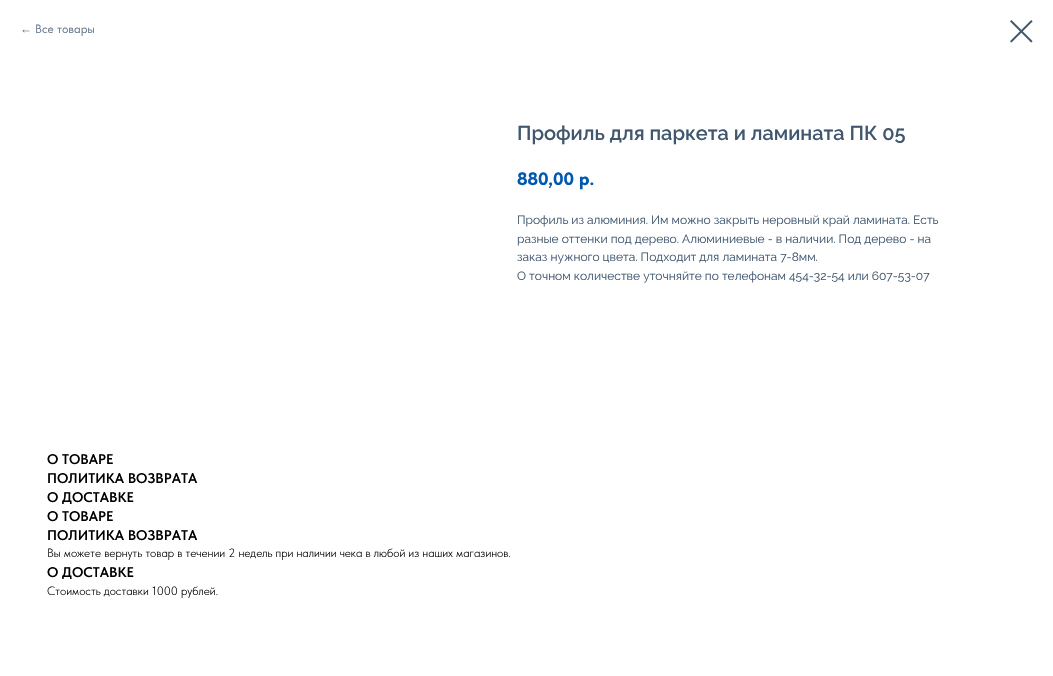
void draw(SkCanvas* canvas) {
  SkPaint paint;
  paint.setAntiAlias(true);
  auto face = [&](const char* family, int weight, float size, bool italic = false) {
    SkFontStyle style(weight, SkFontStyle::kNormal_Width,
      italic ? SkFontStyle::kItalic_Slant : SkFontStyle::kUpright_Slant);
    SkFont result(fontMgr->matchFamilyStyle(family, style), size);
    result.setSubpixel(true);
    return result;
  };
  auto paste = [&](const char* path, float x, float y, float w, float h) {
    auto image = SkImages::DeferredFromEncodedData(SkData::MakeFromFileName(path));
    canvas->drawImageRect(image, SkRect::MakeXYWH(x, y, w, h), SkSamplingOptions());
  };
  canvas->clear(0xffffffff);
  paste("img/1.png", 1010, 20, 23, 23);
  auto f0 = face("Liberation Sans", 400, 12);
  paint.setColor(0xff66798c);
  canvas->drawString("←", 20, 33, f0, paint);
  auto f1 = face("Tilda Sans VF", 400, 12);
  canvas->drawString("Все товары", 35, 33, f1, paint);
  auto f2 = face("Raleway", 600, 20);
  paint.setColor(0xff40576f);
  canvas->drawString("Профиль для паркета и ламината ПК 05", 517, 140, f2, paint);
  auto f3 = face("Tilda Sans VF", 800, 18);
  paint.setColor(0xff0158b1);
  canvas->drawString("880,00", 517, 185, f3, paint);
  canvas->drawString("р.", 579, 185, f3, paint);
  auto f4 = face("Raleway", 400, 12);
  paint.setColor(0xff40576f);
  {
    const struct { const char* s; float x, y; } items[] = {
      {"Профиль из алюминия. Им можно закрыть неровный край ламината. Есть", 517, 224},
      {"разные оттенки под дерево. Алюминиевые - в наличии. Под дерево - на", 517, 243},
      {"заказ нужного цвета. Подходит для ламината 7-8мм.", 517, 261},
      {"О точном количестве уточняйте по телефонам 454-32-54 или 607-53-07", 517, 280},
    };
    for (auto [s, x, y] : items) {
      canvas->drawString(s, x, y, f4, paint);
    }
  }
  auto f5 = face("Tilda Sans VF", 600, 14);
  paint.setColor(0xff000000);
  {
    const struct { const char* s; float x, y; } items[] = {
      {"О ТОВАРЕ", 47, 464},
      {"ПОЛИТИКА ВОЗВРАТА", 47, 483},
      {"О ДОСТАВКЕ", 47, 502},
      {"О ТОВАРЕ", 47, 521},
      {"ПОЛИТИКА ВОЗВРАТА", 47, 540},
    };
    for (auto [s, x, y] : items) {
      canvas->drawString(s, x, y, f5, paint);
    }
  }
  auto f6 = face("Tilda Sans VF", 300, 12);
  canvas->drawString("Вы можете вернуть товар в течении 2 недель при наличии чека в любой из наших магазинов.", 47, 557, f6, paint);
  canvas->drawString("О ДОСТАВКЕ", 47, 577, f5, paint);
  canvas->drawString("Стоимость доставки 1000 рублей.", 47, 595, f6, paint);
}
